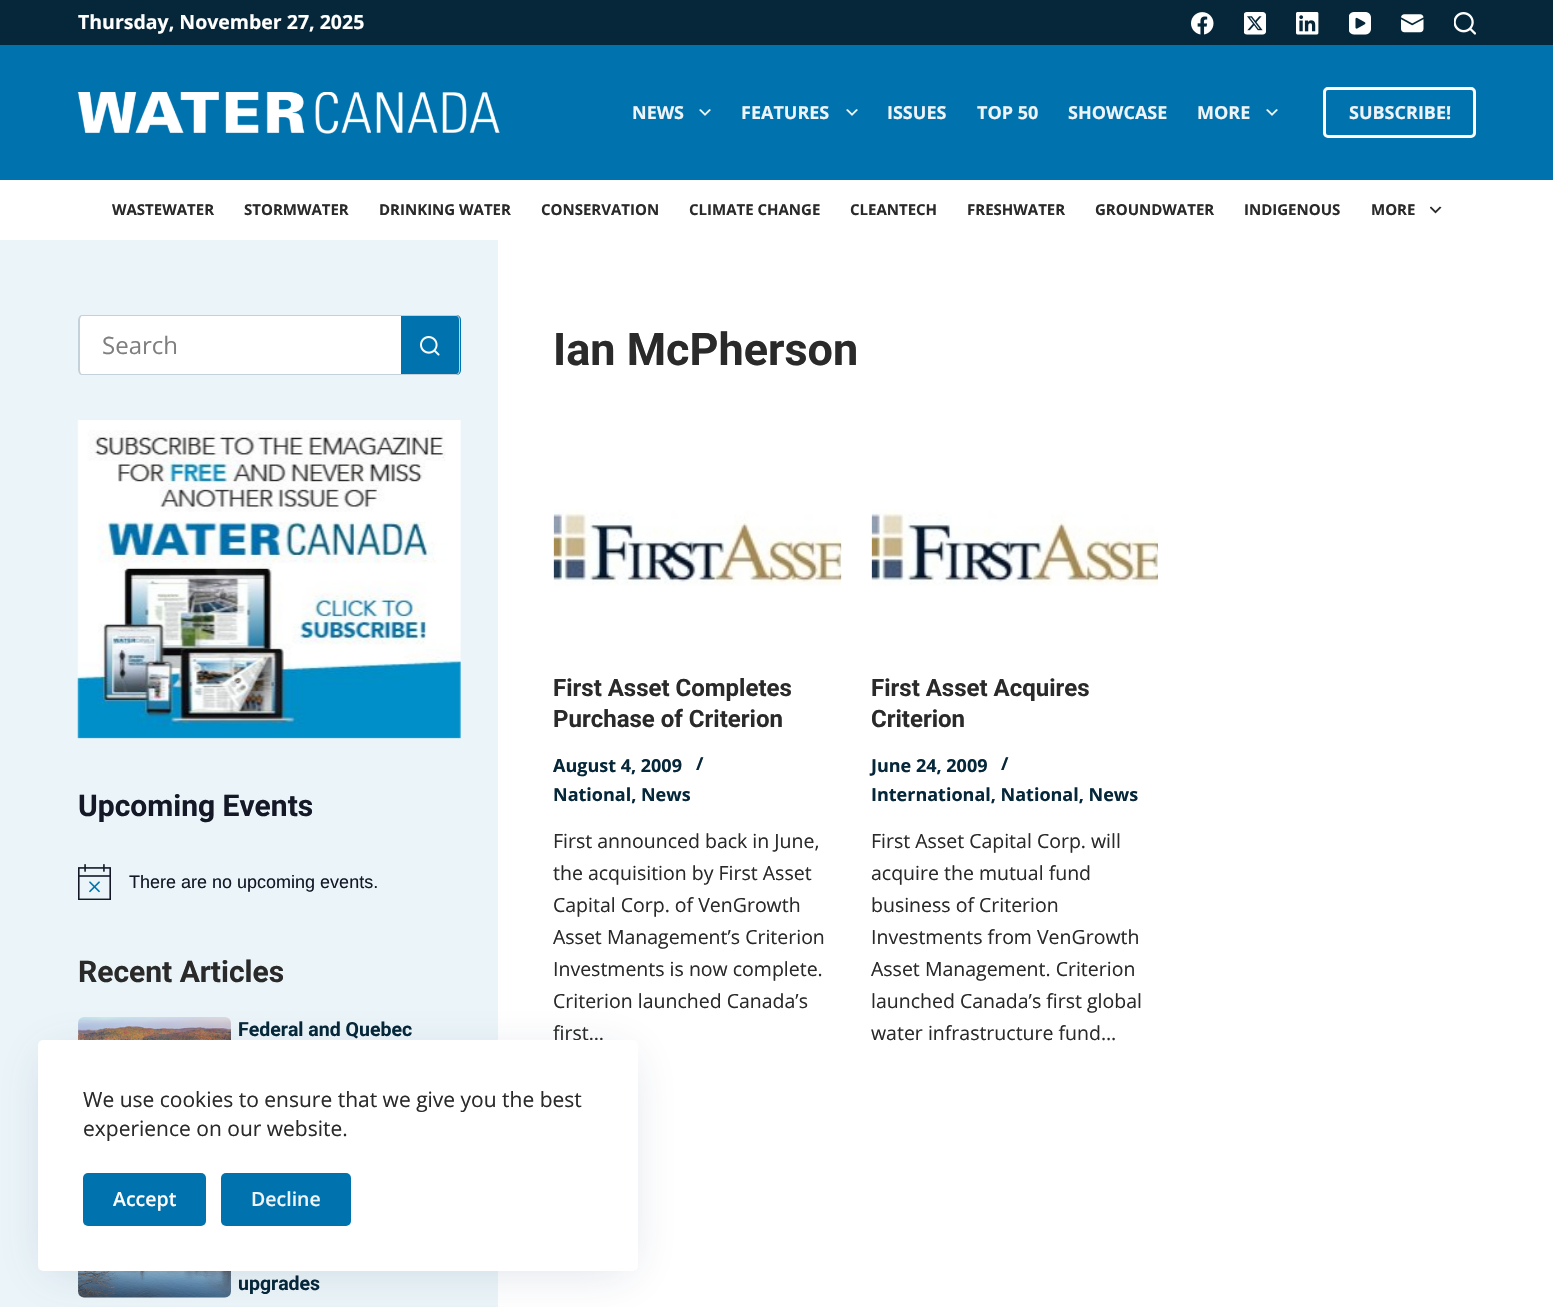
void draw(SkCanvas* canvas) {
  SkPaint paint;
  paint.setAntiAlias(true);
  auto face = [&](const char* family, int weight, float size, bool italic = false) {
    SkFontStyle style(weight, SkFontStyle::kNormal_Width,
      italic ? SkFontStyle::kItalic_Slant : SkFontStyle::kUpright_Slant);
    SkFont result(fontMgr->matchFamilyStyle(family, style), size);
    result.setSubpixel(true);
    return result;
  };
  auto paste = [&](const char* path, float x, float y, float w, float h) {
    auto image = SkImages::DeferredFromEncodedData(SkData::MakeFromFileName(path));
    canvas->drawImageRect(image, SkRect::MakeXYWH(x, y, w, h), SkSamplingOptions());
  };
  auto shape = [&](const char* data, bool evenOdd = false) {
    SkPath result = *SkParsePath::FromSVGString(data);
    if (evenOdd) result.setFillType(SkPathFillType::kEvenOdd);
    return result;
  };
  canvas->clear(0xffffffff);
  paint.setColor(0xff052739);
  canvas->drawRect(SkRect::MakeXYWH(0, 0, 1553, 45), paint);
  paste("img/1.png", 1191, 12, 23, 23);
  paste("img/2.png", 1244, 12, 22, 23);
  paste("img/3.png", 1296, 12, 23, 23);
  paste("img/4.png", 1349, 12, 22, 23);
  paste("img/5.png", 1401, 14, 23, 19);
  paste("img/6.png", 1454, 12, 22, 23);
  paint.setColor(0xff0073ae);
  canvas->drawRect(SkRect::MakeXYWH(0, 45, 1553, 135), paint);
  paste("img/7.png", 77, 92, 423, 42);
  paste("img/8.png", 699, 109, 12, 7);
  paste("img/8.png", 846, 109, 12, 7);
  paste("img/8.png", 1266, 109, 12, 7);
  paint.setStroke(true);
  paint.setStrokeWidth(3);
  paint.setColor(0xffffffff);
  canvas->drawRoundRect(SkRect::MakeXYWH(1324.5f, 88.5f, 150, 48), 3.5f, 3.5f, paint);
  paste("img/9.png", 1430, 206, 12, 8);
  paint.setStroke(false);
  paint.setColor(0xffebf5f9);
  canvas->drawRect(SkRect::MakeXYWH(0, 240, 498, 1067), paint);
  paint.setColor(0xffffffff);
  canvas->drawPath(shape("M83 315H401V375H83C80 375 78 373 78 370V320C78 317 80 315 83 315Z"), paint);
  paint.setColor(0xffc4d1d9);
  canvas->drawPath(shape("M82 315H400V375H82C80 375 78 373 78 370V320C78 317 80 315 82 315ZM82 316H400V374H82C81 374 80 372 80 370V320C80 318 81 316 82 316Z", true), paint);
  paint.setColor(0xff0073ae);
  canvas->drawPath(shape("M401 315H456C459 315 461 317 461 320V370C461 373 459 375 456 375H401Z"), paint);
  paint.setColor(0xffc4d1d9);
  canvas->drawPath(shape("M400 315H456C458 315 460 317 460 320V370C460 373 458 375 456 375H400ZM400 316H456C458 316 459 318 459 320V370C459 372 458 374 456 374H400Z", true), paint);
  paste("img/10.png", 420, 336, 20, 20);
  paste("img/11.png", 77, 420, 384, 319);
  paste("img/12.png", 78, 864, 33, 36);
  paste("img/13.png", 78, 1017, 153, 23);
  paste("img/14.png", 78, 1271, 153, 27);
  paste("img/15.png", 553, 509, 289, 77);
  paste("img/16.png", 871, 509, 287, 77);
  paint.setColor(0x26223865);
  paint.setMaskFilter(SkMaskFilter::MakeBlur(kNormal_SkBlurStyle, 22.5f));
  canvas->drawRect(SkRect::MakeXYWH(45, 1055, 585, 216), paint);
  paint.setMaskFilter(nullptr);
  auto f0 = face("Open Sans", 700, 19.5f);
  paint.setColor(0xffffffff);
  canvas->drawString("Thursday, November 27, 2025", 78, 29, f0, paint);
  auto f1 = face("Open Sans", 700, 18);
  paint.setColor(0xffeef4f8);
  {
    const struct { const char* s; float x, y; } items[] = {
      {"NEWS", 632, 119},
      {"FEATURES", 741, 119},
      {"ISSUES", 887, 119},
      {"TOP 50", 977, 119},
      {"SHOWCASE", 1068, 119},
      {"MORE", 1197, 119},
      {"SUBSCRIBE!", 1349, 119},
    };
    for (auto [s, x, y] : items) {
      canvas->drawString(s, x, y, f1, paint);
    }
  }
  auto f2 = face("Open Sans", 700, 15);
  paint.setColor(0xff2a2a2a);
  {
    const struct { const char* s; float x, y; } items[] = {
      {"WASTEWATER", 112, 215},
      {"STORMWATER", 244, 215},
      {"DRINKING WATER", 379, 215},
      {"CONSERVATION", 541, 215},
      {"CLIMATE CHANGE", 689, 215},
      {"CLEANTECH", 850, 215},
      {"FRESHWATER", 967, 215},
      {"GROUNDWATER", 1095, 215},
      {"INDIGENOUS", 1244, 215},
      {"MORE", 1371, 215},
    };
    for (auto [s, x, y] : items) {
      canvas->drawString(s, x, y, f2, paint);
    }
  }
  auto f3 = face("Open Sans", 400, 24);
  paint.setColor(0xff7f7f7f);
  canvas->drawString("Search", 102, 354, f3, paint);
  auto f4 = face("Roboto", 700, 30);
  paint.setColor(0xff141827);
  canvas->drawString("Upcoming Events", 78, 816, f4, paint);
  auto f5 = face("Liberation Sans", 400, 18);
  canvas->drawString("There are no upcoming events.", 129, 888, f5, paint);
  paint.setColor(0xff2a2a2a);
  canvas->drawString("Recent Articles", 78, 982, f4, paint);
  auto f6 = face("Roboto", 700, 19.5f);
  paint.setColor(0xff052739);
  canvas->drawString("Federal and Quebec", 238, 1036, f6, paint);
  canvas->drawString("upgrades", 238, 1290, f6, paint);
  auto f7 = face("Roboto", 700, 45);
  paint.setColor(0xff2a2a2a);
  canvas->drawString("Ian McPherson", 553, 365, f7, paint);
  auto f8 = face("Roboto", 700, 24);
  canvas->drawString("First Asset Completes", 553, 696, f8, paint);
  canvas->drawString("Purchase of Criterion", 553, 727, f8, paint);
  paint.setColor(0xff052739);
  {
    const struct { const char* s; float x, y; } items[] = {
      {"August 4, 2009", 553, 772},
      {"/", 696, 770},
      {"National, News", 553, 801},
    };
    for (auto [s, x, y] : items) {
      canvas->drawString(s, x, y, f1, paint);
    }
  }
  auto f9 = face("Open Sans", 400, 19.5f);
  paint.setColor(0xff2a2a2a);
  {
    const struct { const char* s; float x, y; } items[] = {
      {"First announced back in June,", 553, 848},
      {"the acquisition by First Asset", 553, 880},
      {"Capital Corp. of VenGrowth", 553, 912},
      {"Asset Management’s Criterion", 553, 944},
      {"Investments is now complete.", 553, 976},
      {"Criterion launched Canada’s", 553, 1008},
      {"first…", 553, 1040},
    };
    for (auto [s, x, y] : items) {
      canvas->drawString(s, x, y, f9, paint);
    }
  }
  canvas->drawString("First Asset Acquires", 871, 696, f8, paint);
  canvas->drawString("Criterion", 871, 727, f8, paint);
  paint.setColor(0xff052739);
  {
    const struct { const char* s; float x, y; } items[] = {
      {"June 24, 2009", 871, 772},
      {"/", 1001, 770},
      {"International, National, News", 871, 801},
    };
    for (auto [s, x, y] : items) {
      canvas->drawString(s, x, y, f1, paint);
    }
  }
  paint.setColor(0xff2a2a2a);
  {
    const struct { const char* s; float x, y; } items[] = {
      {"First Asset Capital Corp. will", 871, 848},
      {"acquire the mutual fund", 871, 880},
      {"business of Criterion", 871, 912},
      {"Investments from VenGrowth", 871, 944},
      {"Asset Management. Criterion", 871, 976},
      {"launched Canada’s first global", 871, 1008},
      {"water infrastructure fund…", 871, 1040},
    };
    for (auto [s, x, y] : items) {
      canvas->drawString(s, x, y, f9, paint);
    }
  }
  paint.setColor(0xffffffff);
  canvas->drawRoundRect(SkRect::MakeXYWH(38, 1040, 600, 231), 5, 5, paint);
  auto f10 = face("Open Sans", 400, 21);
  paint.setColor(0xff2a2a2a);
  canvas->drawString("We use cookies to ensure that we give you the best", 83, 1107, f10, paint);
  canvas->drawString("experience on our website.", 83, 1136, f10, paint);
  paint.setColor(0xff0073ae);
  canvas->drawRoundRect(SkRect::MakeXYWH(83, 1173, 123, 53), 5, 5, paint);
  auto f11 = face("Open Sans", 600, 19.5f);
  paint.setColor(0xffffffff);
  canvas->drawString("Accept", 113, 1206, f11, paint);
  paint.setColor(0xff0073ae);
  canvas->drawRoundRect(SkRect::MakeXYWH(221, 1173, 130, 53), 5, 5, paint);
  paint.setColor(0xffeef4f8);
  canvas->drawString("Decline", 251, 1206, f11, paint);
}
